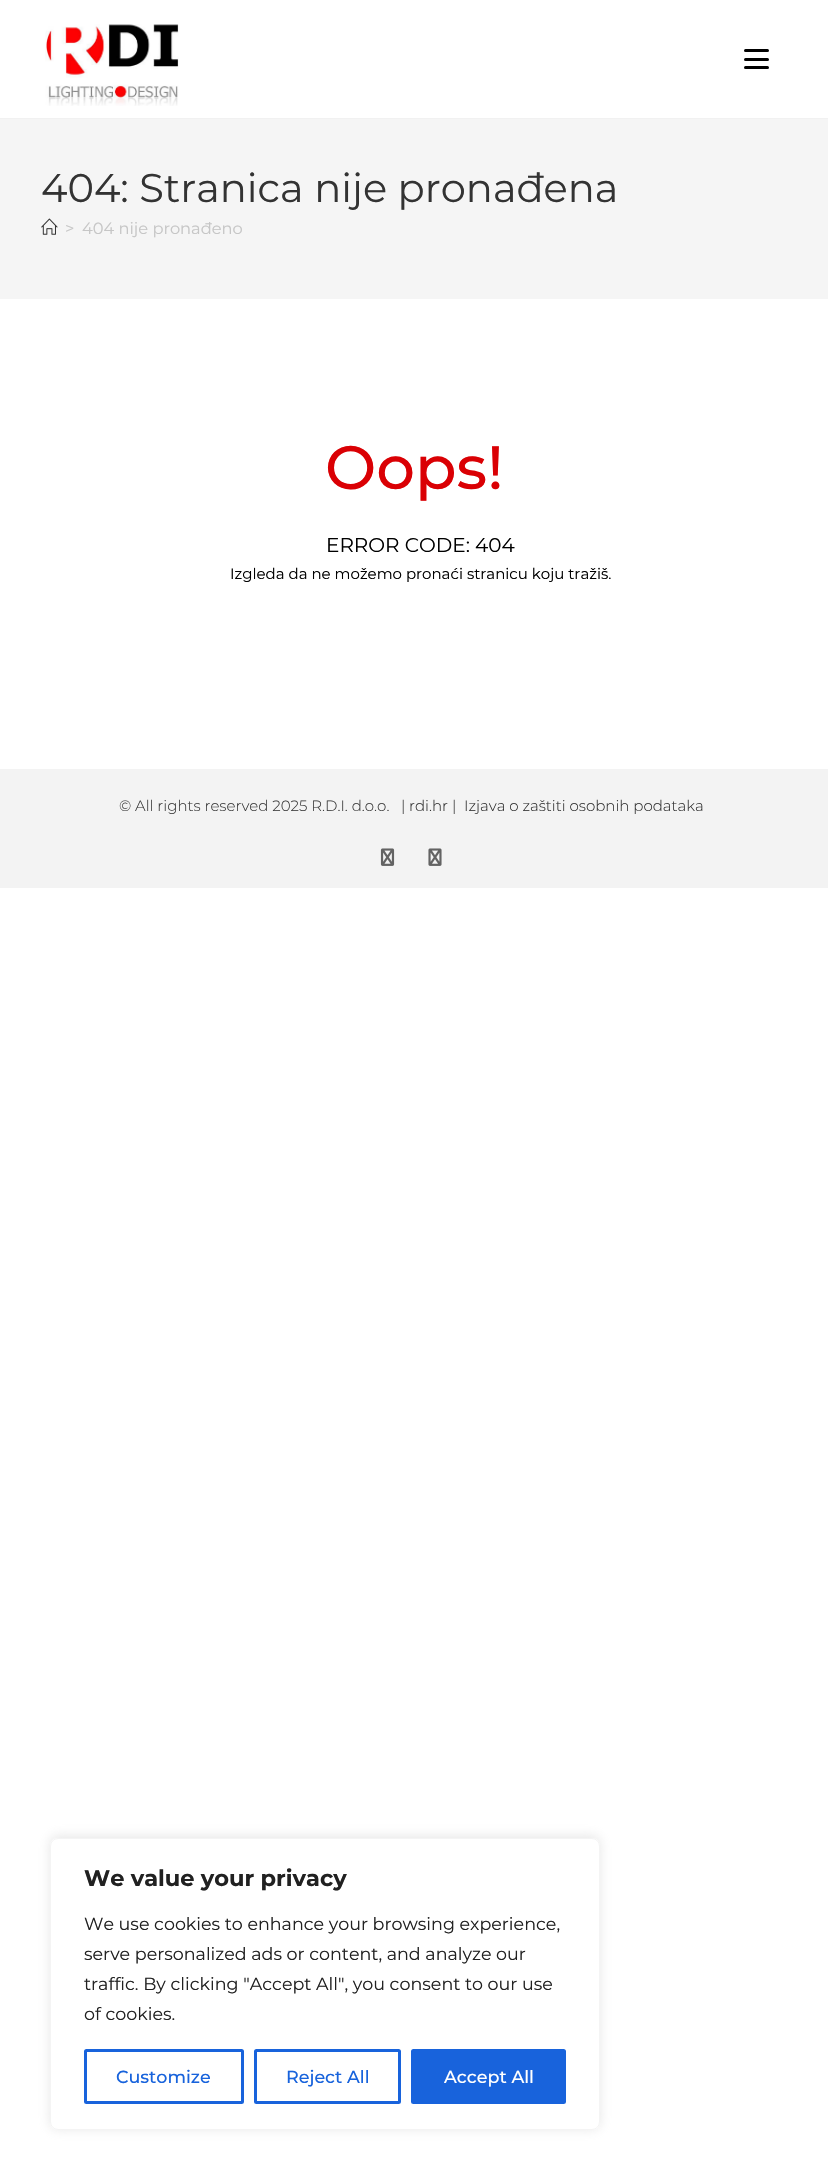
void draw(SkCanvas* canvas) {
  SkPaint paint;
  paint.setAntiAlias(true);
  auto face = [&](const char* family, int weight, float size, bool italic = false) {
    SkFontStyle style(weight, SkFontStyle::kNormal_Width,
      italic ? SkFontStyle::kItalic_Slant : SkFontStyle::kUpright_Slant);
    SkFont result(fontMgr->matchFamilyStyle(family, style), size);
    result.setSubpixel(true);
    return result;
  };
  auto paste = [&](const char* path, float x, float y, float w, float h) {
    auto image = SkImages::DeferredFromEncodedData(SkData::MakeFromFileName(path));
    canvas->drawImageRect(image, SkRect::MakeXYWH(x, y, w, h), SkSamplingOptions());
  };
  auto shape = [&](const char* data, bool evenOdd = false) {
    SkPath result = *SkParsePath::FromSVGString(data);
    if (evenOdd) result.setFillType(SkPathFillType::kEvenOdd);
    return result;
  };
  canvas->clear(0xffffffff);
  paint.setColor(0xfff1f1f1);
  canvas->drawRect(SkRect::MakeXYWH(0, 118, 828, 1), paint);
  paste("img/1.png", 45, 24, 134, 82);
  paint.setColor(0xff000000);
  canvas->drawRoundRect(SkRect::MakeXYWH(744, 49, 25, 3), 1.5f, 1.5f, paint);
  canvas->drawRoundRect(SkRect::MakeXYWH(744, 58, 25, 3), 1.5f, 1.5f, paint);
  canvas->drawRoundRect(SkRect::MakeXYWH(744, 66, 25, 3), 1.5f, 1.5f, paint);
  paint.setColor(0xfff5f5f5);
  canvas->drawRect(SkRect::MakeXYWH(0, 119, 828, 180), paint);
  paste("img/2.png", 41, 218, 17, 17);
  paint.setColor(0xfff3f3f3);
  canvas->drawRect(SkRect::MakeXYWH(0, 769, 828, 119), paint);
  paste("img/3.png", 380, 848, 15, 18);
  paste("img/4.png", 428, 848, 14, 18);
  canvas->save();
  canvas->clipPath(shape("M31 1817H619V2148H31ZM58 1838H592C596.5 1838 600 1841.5 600 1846V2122C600 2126.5 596.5 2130 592 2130H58C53.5 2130 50 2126.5 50 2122V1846C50 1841.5 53.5 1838 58 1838Z", true), true);
  paint.setColor(0x4dacabab);
  paint.setMaskFilter(SkMaskFilter::MakeBlur(kNormal_SkBlurStyle, 6));
  canvas->drawRoundRect(SkRect::MakeXYWH(50, 1836, 550, 293), 8, 8, paint);
  paint.setMaskFilter(nullptr);
  canvas->restore();
  paint.setStroke(true);
  paint.setStrokeWidth(1);
  paint.setColor(0xfff4f4f4);
  canvas->drawRoundRect(SkRect::MakeXYWH(50.5f, 1838.5f, 549, 291), 7.5f, 7.5f, paint);
  paint.setStrokeWidth(3);
  paint.setColor(0xff1863dc);
  canvas->drawRoundRect(SkRect::MakeXYWH(85.5f, 2050.5f, 157, 52), 1, 1, paint);
  canvas->drawRoundRect(SkRect::MakeXYWH(255.5f, 2050.5f, 144, 52), 1, 1, paint);
  paint.setStroke(false);
  canvas->drawRoundRect(SkRect::MakeXYWH(412.5f, 2050.5f, 152, 52), 1, 1, paint);
  paint.setStroke(true);
  canvas->drawRoundRect(SkRect::MakeXYWH(412.5f, 2050.5f, 152, 52), 1, 1, paint);
  auto f0 = face("Montserrat", 400, 40);
  paint.setStroke(false);
  paint.setColor(0xff333333);
  canvas->drawString("404: Stranica nije pronađena", 41, 202, f0, paint);
  auto f1 = face("Montserrat", 400, 16.25f);
  paint.setColor(0xffc6c6c6);
  canvas->drawString(">", 65, 234, f1, paint);
  canvas->drawString("404 nije pronađeno", 82, 234, f1, paint);
  auto f2 = face("Montserrat", 500, 61);
  paint.setColor(0xffda0004);
  canvas->drawString("Oops!", 325, 489, f2, paint);
  auto f3 = face("Montserrat", 400, 20);
  paint.setColor(0xff000000);
  canvas->drawString("ERROR CODE: 404", 326, 552, f3, paint);
  auto f4 = face("Montserrat", 400, 15);
  canvas->drawString("Izgleda da ne možemo pronaći stranicu koju tražiš.", 230, 579, f4, paint);
  auto f5 = face("Montserrat", 300, 15);
  paint.setColor(0xff3d3d3d);
  canvas->drawString("© All rights reserved 2025 R.D.I. d.o.o.   |", 119, 811, f5, paint);
  paint.setColor(0xff333333);
  canvas->drawString("rdi.hr", 409, 811, f5, paint);
  paint.setColor(0xff3d3d3d);
  canvas->drawString("|", 452, 811, f5, paint);
  paint.setColor(0xff333333);
  canvas->drawString("Izjava o zaštiti osobnih podataka", 464, 811, f5, paint);
  auto f6 = face("Montserrat", 700, 22.5f);
  paint.setColor(0xff212121);
  canvas->drawString("We value your privacy", 84, 1886, f6, paint);
  auto f7 = face("Montserrat", 400, 17.5f);
  {
    const struct { const char* s; float x, y; } items[] = {
      {"We use cookies to enhance your browsing experience,", 84, 1930},
      {"serve personalized ads or content, and analyze our", 84, 1960},
      {"traffic. By clicking \"Accept All\", you consent to our use", 84, 1990},
      {"of cookies.", 84, 2020},
    };
    for (auto [s, x, y] : items) {
      canvas->drawString(s, x, y, f7, paint);
    }
  }
  auto f8 = face("Montserrat", 500, 17.5f);
  paint.setColor(0xff1863dc);
  canvas->drawString("Customize", 116, 2083, f8, paint);
  canvas->drawString("Reject All", 286, 2083, f8, paint);
  paint.setColor(0xffffffff);
  canvas->drawString("Accept All", 444, 2083, f8, paint);
}
